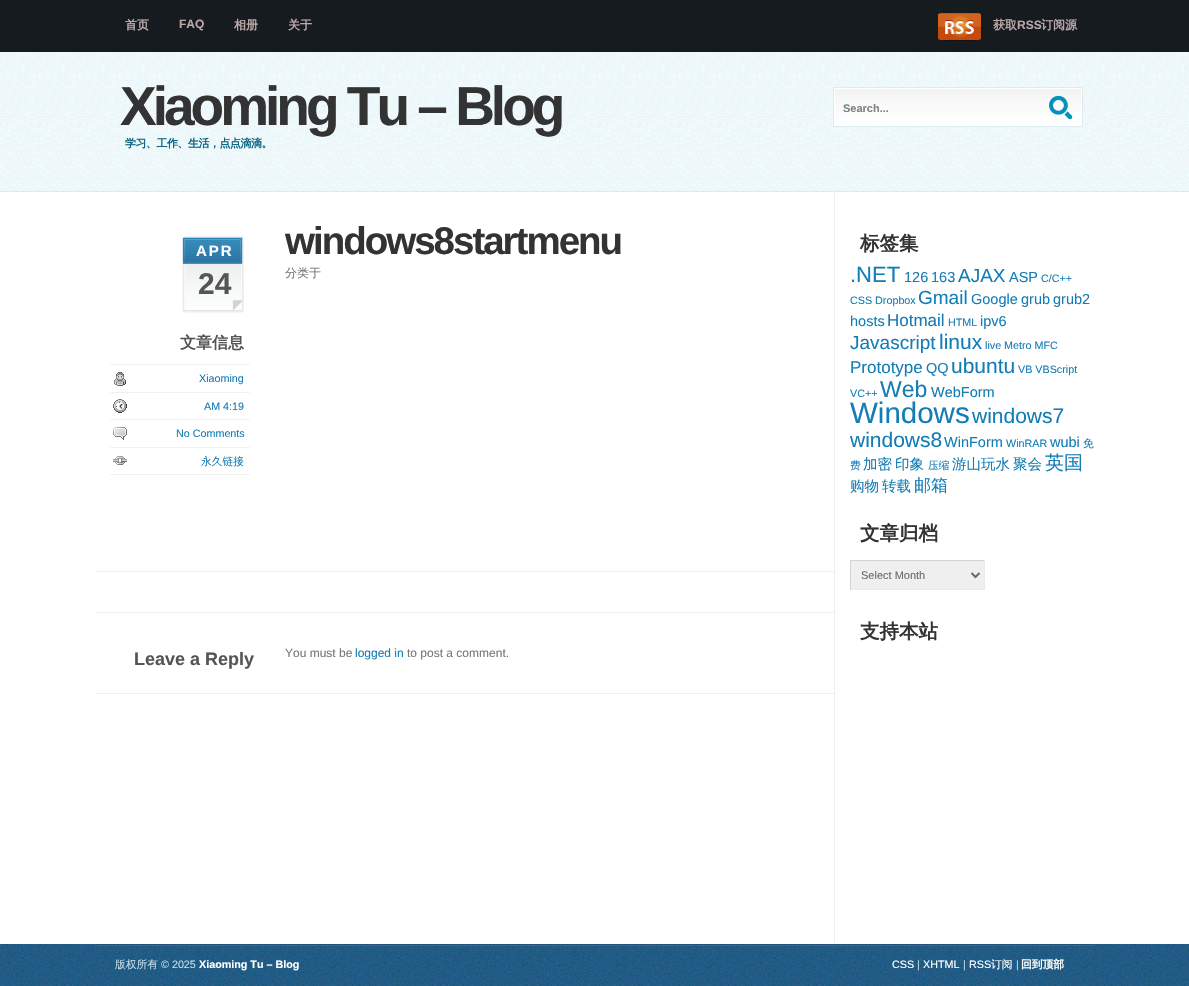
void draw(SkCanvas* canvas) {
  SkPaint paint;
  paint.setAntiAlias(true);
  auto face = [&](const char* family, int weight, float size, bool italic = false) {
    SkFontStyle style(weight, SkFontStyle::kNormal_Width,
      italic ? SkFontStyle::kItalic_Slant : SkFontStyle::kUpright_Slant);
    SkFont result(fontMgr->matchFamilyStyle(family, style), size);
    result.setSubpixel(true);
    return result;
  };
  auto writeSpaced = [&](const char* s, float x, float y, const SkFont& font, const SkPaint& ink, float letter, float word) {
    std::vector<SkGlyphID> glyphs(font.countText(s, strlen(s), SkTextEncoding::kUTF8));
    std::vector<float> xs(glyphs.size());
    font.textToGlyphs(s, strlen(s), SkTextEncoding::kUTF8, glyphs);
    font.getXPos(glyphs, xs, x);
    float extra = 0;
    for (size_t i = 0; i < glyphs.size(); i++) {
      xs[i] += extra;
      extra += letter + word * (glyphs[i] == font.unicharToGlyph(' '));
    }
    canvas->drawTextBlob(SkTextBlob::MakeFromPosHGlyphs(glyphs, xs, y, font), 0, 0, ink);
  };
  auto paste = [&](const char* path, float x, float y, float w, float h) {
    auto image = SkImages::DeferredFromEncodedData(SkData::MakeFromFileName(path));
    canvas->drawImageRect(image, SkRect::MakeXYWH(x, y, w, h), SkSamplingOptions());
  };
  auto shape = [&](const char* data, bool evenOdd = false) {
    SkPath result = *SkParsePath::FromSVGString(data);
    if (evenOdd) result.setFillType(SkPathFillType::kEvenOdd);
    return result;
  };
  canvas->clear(0xffffffff);
  paste("img/1.png", 0, 944, 1189, 42);
  paste("img/2.png", 0, 0, 1189, 192);
  paste("img/3.png", 938, 13, 43, 28);
  paste("img/4.png", 833, 87, 210, 40);
  paste("img/5.png", 1043, 87, 40, 40);
  paint.setColor(0xffeeeeee);
  canvas->drawRect(SkRect::MakeXYWH(834, 192, 1, 752), paint);
  canvas->drawRect(SkRect::MakeXYWH(95, 571, 740, 1), paint);
  paste("img/6.png", 182, 236, 62, 77);
  paint.setColor(0xfff1f1f1);
  canvas->drawRect(SkRect::MakeXYWH(110, 364, 140, 1), paint);
  paste("img/7.png", 114, 372, 12, 14);
  canvas->drawRect(SkRect::MakeXYWH(110, 392, 140, 1), paint);
  paste("img/8.png", 113, 399, 14, 14);
  canvas->drawRect(SkRect::MakeXYWH(110, 419, 140, 1), paint);
  paste("img/9.png", 113, 427, 14, 13);
  canvas->drawRect(SkRect::MakeXYWH(110, 447, 140, 1), paint);
  paste("img/10.png", 113, 456, 14, 9);
  {
    const struct { float x, y, w, h; SkColor color; } items[] = {
      {110, 474, 140, 1, 0xfff1f1f1},
      {95, 612, 740, 1, 0xffeeeeee},
      {95, 693, 740, 1, 0xffeeeeee},
      {851, 561, 133, 28, 0xffefefef},
      {850, 560, 135, 1, 0xffd4d4d4},
      {984, 560, 1, 30, 0xffebebeb},
      {850, 589, 135, 1, 0xffebebeb},
      {850, 560, 1, 30, 0xffd4d4d4},
    };
    for (auto [x, y, w, h, color] : items) {
      paint.setColor(color);
      canvas->drawRect(SkRect::MakeXYWH(x, y, w, h), paint);
    }
  }
  paint.setStroke(true);
  paint.setStrokeWidth(2);
  paint.setColor(0xff6a6969);
  canvas->drawPath(shape("M971.5 573L975.5 577L979.5 573"), paint);
  paste("img/11.png", 95, 944, 1000, 2);
  auto f0 = face("WenQuanYi Zen Hei", 700, 12);
  paint.setStroke(false);
  paint.setColor(0xffbaa7a7);
  canvas->drawString("首页", 125, 29, f0, paint);
  auto f1 = face("Liberation Sans", 700, 12);
  canvas->drawString("FAQ", 179, 28, f1, paint);
  {
    const struct { const char* s; float x, y; } items[] = {
      {"相册", 234, 29},
      {"关于", 288, 29},
      {"获取", 993, 29},
    };
    for (auto [s, x, y] : items) {
      canvas->drawString(s, x, y, f0, paint);
    }
  }
  canvas->drawString("RSS", 1017, 29, f1, paint);
  canvas->drawString("订阅源", 1041, 29, f0, paint);
  auto f2 = face("Liberation Sans", 700, 55);
  paint.setColor(0xff333333);
  writeSpaced("Xiaoming Tu – Blog", 120, 125, f2, paint, -4, 0);
  auto f3 = face("Liberation Sans", 700, 11);
  paint.setColor(0xff7d8285);
  canvas->drawString("Search...", 843, 112, f3, paint);
  auto f4 = face("WenQuanYi Zen Hei", 700, 11);
  paint.setColor(0xff0d6684);
  writeSpaced("学习、工作、生活，点点滴滴。", 125, 147, f4, paint, -0.5f, 0);
  auto f5 = face("Liberation Sans", 700, 15);
  paint.setColor(0xffffffff);
  writeSpaced("APR", 196, 256, f5, paint, 2, 0);
  auto f6 = face("Liberation Sans", 700, 30);
  paint.setColor(0xff555555);
  canvas->drawString("24", 198, 294, f6, paint);
  auto f7 = face("WenQuanYi Zen Hei", 700, 16);
  canvas->drawString("文章信息", 180, 348, f7, paint);
  auto f8 = face("Liberation Sans", 400, 10.75f);
  paint.setColor(0xff147db6);
  {
    const struct { const char* s; float x, y; } items[] = {
      {"Xiaoming", 199, 382},
      {"AM 4:19", 204, 410},
      {"No Comments", 176, 437},
    };
    for (auto [s, x, y] : items) {
      canvas->drawString(s, x, y, f8, paint);
    }
  }
  auto f9 = face("WenQuanYi Zen Hei", 500, 10.75f);
  canvas->drawString("永久链接", 201, 465, f9, paint);
  auto f10 = face("Liberation Sans", 700, 38.5f);
  paint.setColor(0xff333333);
  writeSpaced("windows8startmenu", 285, 254, f10, paint, -2, 0);
  auto f11 = face("WenQuanYi Zen Hei", 500, 12);
  paint.setColor(0xff777777);
  canvas->drawString("分类于", 285, 277, f11, paint);
  auto f12 = face("Liberation Sans", 700, 18);
  paint.setColor(0xff555555);
  canvas->drawString("Leave a Reply", 134, 665, f12, paint);
  auto f13 = face("Liberation Sans", 400, 12);
  paint.setColor(0xff777777);
  canvas->drawString("You must be", 285, 657, f13, paint);
  paint.setColor(0xff147db6);
  canvas->drawString("logged in", 355, 657, f13, paint);
  paint.setColor(0xff777777);
  canvas->drawString("to post a comment.", 407, 657, f13, paint);
  auto f14 = face("WenQuanYi Zen Hei", 700, 19.5f);
  paint.setColor(0xff333333);
  canvas->drawString("标签集", 860, 250, f14, paint);
  auto f15 = face("Liberation Sans", 400, 22);
  paint.setColor(0xff147db6);
  canvas->drawString(".NET", 850, 282, f15, paint);
  auto f16 = face("Liberation Sans", 400, 14.5f);
  canvas->drawString("126", 904, 282, f16, paint);
  canvas->drawString("163", 931, 282, f16, paint);
  auto f17 = face("Liberation Sans", 400, 19);
  canvas->drawString("AJAX", 958, 282, f17, paint);
  canvas->drawString("ASP", 1009, 282, f16, paint);
  canvas->drawString("C/C++", 1041, 282, f8, paint);
  canvas->drawString("CSS Dropbox", 850, 304, f8, paint);
  canvas->drawString("Gmail", 918, 304, f17, paint);
  {
    const struct { const char* s; float x, y; } items[] = {
      {"Google", 971, 304},
      {"grub", 1021, 304},
      {"grub2", 1053, 304},
      {"hosts", 850, 326},
    };
    for (auto [s, x, y] : items) {
      canvas->drawString(s, x, y, f16, paint);
    }
  }
  auto f18 = face("Liberation Sans", 400, 17);
  canvas->drawString("Hotmail", 887, 326, f18, paint);
  canvas->drawString("HTML", 948, 326, f8, paint);
  canvas->drawString("ipv6", 980, 326, f16, paint);
  canvas->drawString("Javascript", 850, 349, f17, paint);
  auto f19 = face("Liberation Sans", 400, 21);
  canvas->drawString("linux", 939, 349, f19, paint);
  canvas->drawString("live Metro MFC", 985, 349, f8, paint);
  canvas->drawString("Prototype", 850, 373, f18, paint);
  canvas->drawString("QQ", 926, 373, f16, paint);
  canvas->drawString("ubuntu", 951, 373, f19, paint);
  canvas->drawString("VB VBScript", 1018, 373, f8, paint);
  canvas->drawString("VC++", 850, 397, f8, paint);
  auto f20 = face("Liberation Sans", 400, 23);
  canvas->drawString("Web", 880, 397, f20, paint);
  canvas->drawString("WebForm", 931, 397, f16, paint);
  auto f21 = face("Liberation Sans", 400, 29.5f);
  canvas->drawString("Windows", 850, 423, f21, paint);
  canvas->drawString("windows7", 972, 423, f19, paint);
  canvas->drawString("windows8", 850, 447, f19, paint);
  canvas->drawString("WinForm", 944, 447, f16, paint);
  canvas->drawString("WinRAR", 1006, 447, f8, paint);
  canvas->drawString("wubi", 1050, 447, f16, paint);
  canvas->drawString("免", 1083, 447, f9, paint);
  canvas->drawString("费", 850, 469, f9, paint);
  auto f22 = face("WenQuanYi Zen Hei", 500, 14.5f);
  canvas->drawString("加密", 863, 469, f22, paint);
  canvas->drawString("印象", 895, 469, f22, paint);
  canvas->drawString("压缩", 928, 469, f9, paint);
  canvas->drawString("游山玩水", 952, 469, f22, paint);
  canvas->drawString("聚会", 1013, 469, f22, paint);
  auto f23 = face("WenQuanYi Zen Hei", 500, 19);
  canvas->drawString("英国", 1045, 469, f23, paint);
  canvas->drawString("购物", 850, 491, f22, paint);
  canvas->drawString("转载", 882, 491, f22, paint);
  auto f24 = face("WenQuanYi Zen Hei", 500, 17);
  canvas->drawString("邮箱", 914, 491, f24, paint);
  paint.setColor(0xff333333);
  canvas->drawString("文章归档", 860, 540, f14, paint);
  auto f25 = face("Liberation Sans", 400, 11);
  paint.setColor(0xff6a6969);
  canvas->drawString("Select Month", 861, 579, f25, paint);
  paint.setColor(0xff333333);
  canvas->drawString("支持本站", 860, 638, f14, paint);
  paint.setColor(0xffc2dbe7);
  canvas->drawString("版权所有", 115, 968, f9, paint);
  canvas->drawString("© 2025", 161, 968, f8, paint);
  auto f26 = face("Liberation Sans", 700, 10.75f);
  paint.setColor(0xffffffff);
  canvas->drawString("Xiaoming Tu – Blog", 199, 968, f26, paint);
  canvas->drawString("CSS", 892, 968, f8, paint);
  paint.setColor(0xffc2dbe7);
  canvas->drawString("|", 917, 968, f8, paint);
  paint.setColor(0xffffffff);
  canvas->drawString("XHTML", 923, 968, f8, paint);
  paint.setColor(0xffc2dbe7);
  canvas->drawString("|", 963, 968, f8, paint);
  paint.setColor(0xffffffff);
  canvas->drawString("RSS", 969, 968, f8, paint);
  canvas->drawString("订阅", 991, 968, f9, paint);
  paint.setColor(0xffc2dbe7);
  canvas->drawString("|", 1016, 968, f8, paint);
  auto f27 = face("WenQuanYi Zen Hei", 700, 10.75f);
  paint.setColor(0xffffffff);
  canvas->drawString("回到顶部", 1021, 968, f27, paint);
}
